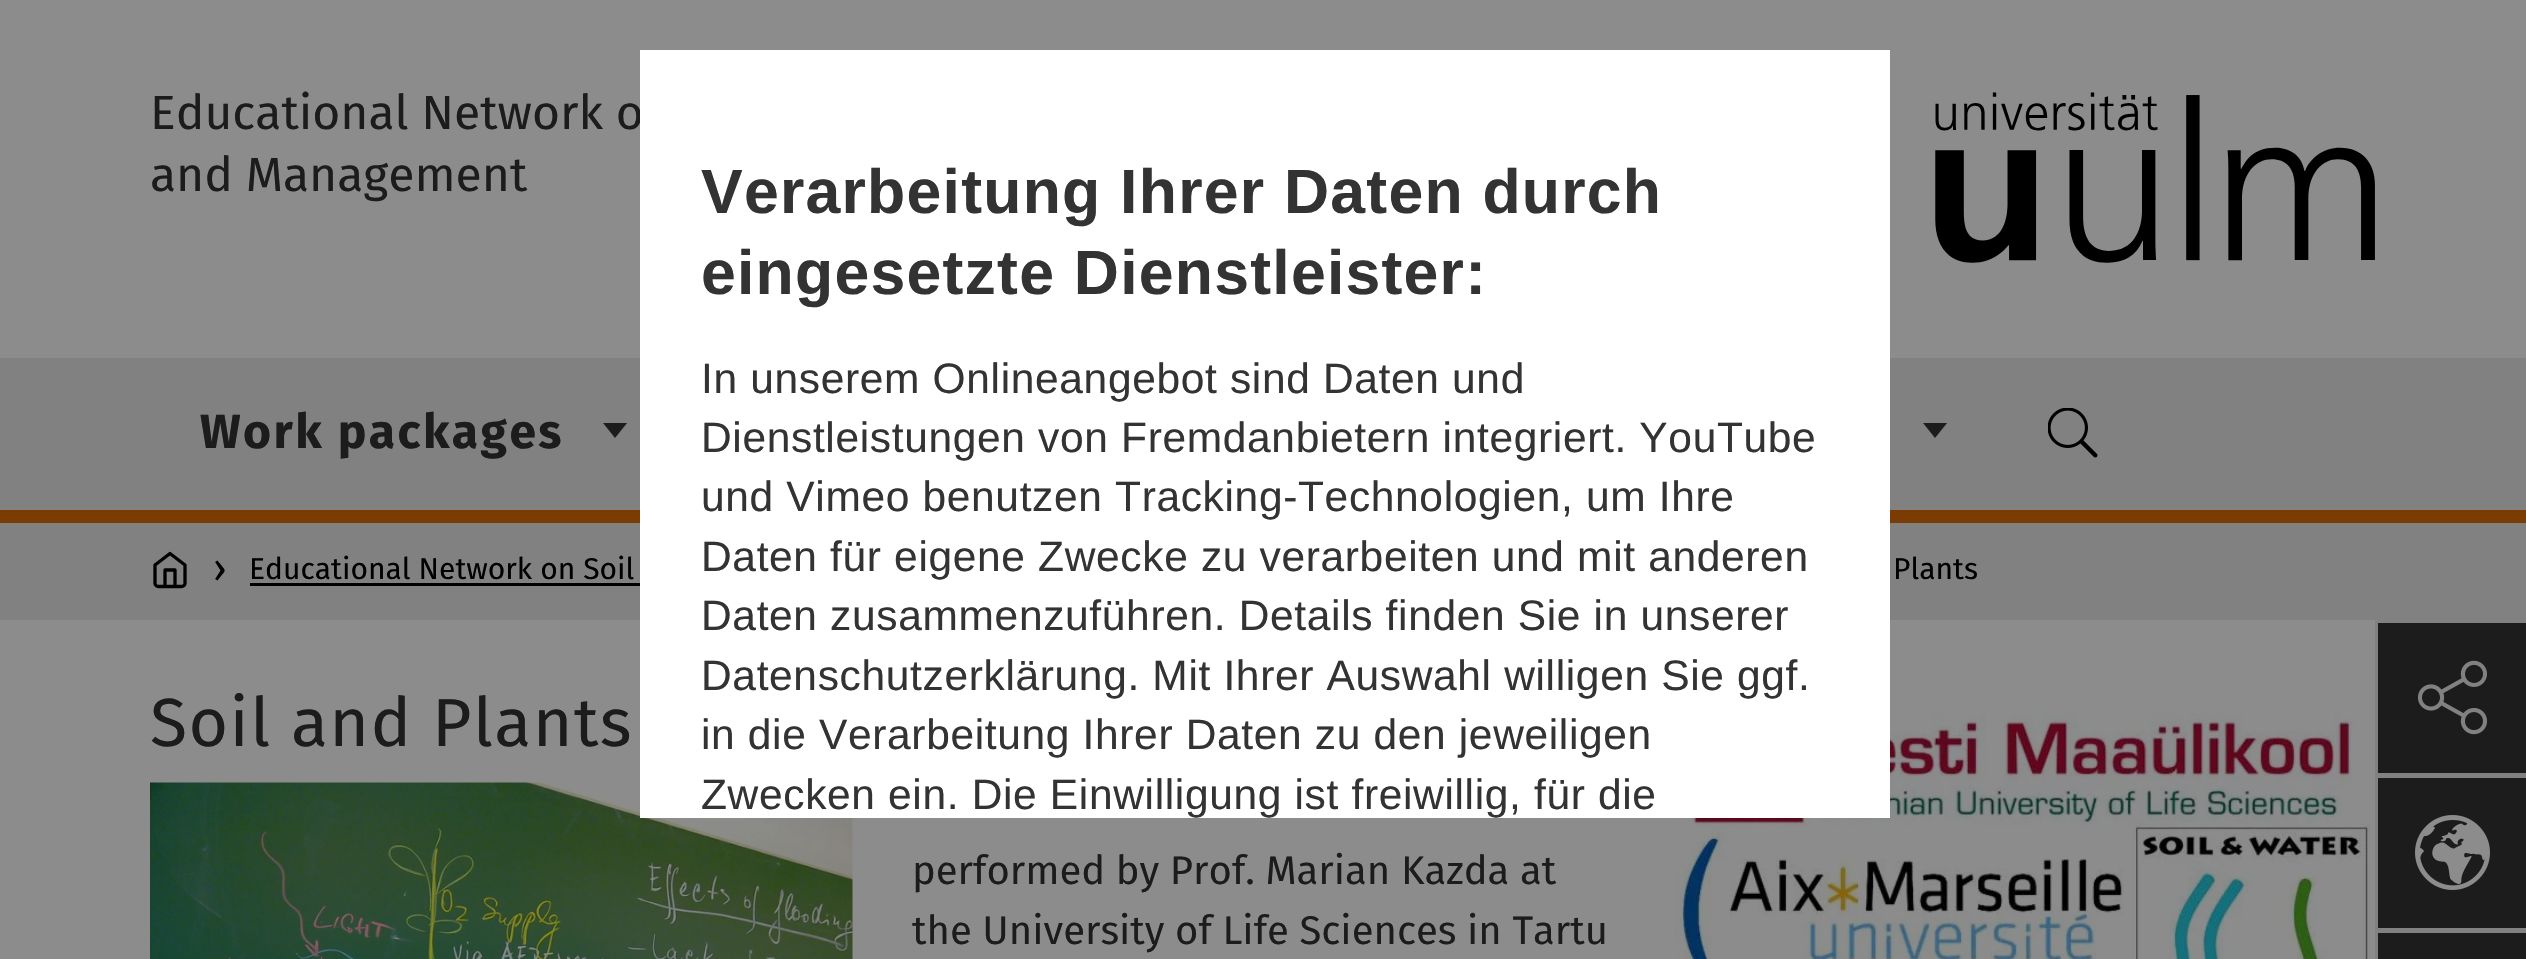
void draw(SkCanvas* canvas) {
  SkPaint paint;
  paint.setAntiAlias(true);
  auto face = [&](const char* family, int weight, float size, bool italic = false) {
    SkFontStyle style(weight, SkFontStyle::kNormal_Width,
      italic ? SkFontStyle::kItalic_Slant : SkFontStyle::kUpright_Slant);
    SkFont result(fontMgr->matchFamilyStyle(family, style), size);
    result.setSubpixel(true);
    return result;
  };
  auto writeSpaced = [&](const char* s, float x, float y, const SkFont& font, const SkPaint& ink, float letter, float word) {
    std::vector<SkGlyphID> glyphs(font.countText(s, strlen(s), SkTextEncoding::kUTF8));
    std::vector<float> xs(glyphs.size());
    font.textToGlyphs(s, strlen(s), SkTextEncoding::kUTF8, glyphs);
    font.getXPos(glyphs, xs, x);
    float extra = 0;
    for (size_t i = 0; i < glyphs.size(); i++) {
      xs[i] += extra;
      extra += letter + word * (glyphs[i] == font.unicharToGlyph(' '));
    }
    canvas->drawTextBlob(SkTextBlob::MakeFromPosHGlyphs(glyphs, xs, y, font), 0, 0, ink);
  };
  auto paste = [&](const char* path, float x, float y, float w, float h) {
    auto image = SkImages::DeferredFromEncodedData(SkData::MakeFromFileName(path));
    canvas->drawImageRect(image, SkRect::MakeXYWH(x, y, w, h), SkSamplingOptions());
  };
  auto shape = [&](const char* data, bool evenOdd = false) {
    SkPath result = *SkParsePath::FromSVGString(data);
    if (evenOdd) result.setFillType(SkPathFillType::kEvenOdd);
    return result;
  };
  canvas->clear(0xff8c8c8c);
  paste("img/1.png", 1935, 92, 440, 171);
  paint.setColor(0xff818181);
  canvas->drawRect(SkRect::MakeXYWH(0, 358, 2526, 152), paint);
  paint.setColor(0xff7b3c04);
  canvas->drawRect(SkRect::MakeXYWH(0, 510, 2526, 13), paint);
  canvas->save();
  canvas->clipRect(SkRect::MakeXYWH(603, 423, 25, 15));
  paint.setColor(0xff1c1c1c);
  canvas->drawPath(shape("M627.5 422.5L615 438L602.5 422.5Z"), paint);
  canvas->restore();
  canvas->save();
  canvas->clipRect(SkRect::MakeXYWH(1923, 423, 25, 15));
  canvas->drawPath(shape("M1947.5 422.5L1935 438L1922.5 422.5Z"), paint);
  canvas->restore();
  paste("img/2.png", 2048, 408, 50, 50);
  paint.setColor(0xff818181);
  canvas->drawRect(SkRect::MakeXYWH(0, 523, 2526, 97), paint);
  paint.setStroke(true);
  paint.setStrokeWidth(3.3f);
  paint.setStrokeCap(SkPaint::kRound_Cap);
  paint.setStrokeJoin(SkPaint::kRound_Join);
  paint.setColor(0xff000000);
  canvas->drawPath(shape("M155 565L170 553.5L185 565V583.5C185 585 183.5 586.5 181.5 586.5H158.5C156.5 586.5 155 585 155 583.5ZM165 586.5V570H175V586.5"), paint);
  paint.setStroke(false);
  {
    const struct { float x, y, w, h; SkColor color; } items[] = {
      {250, 583, 390, 3, 0xff000000},
      {2378, 623, 148, 150, 0xff1c1c1c},
      {2375, 620, 151, 3, 0xff818181},
      {2375, 773, 151, 5, 0xff818181},
      {2375, 620, 3, 155, 0xff818181},
    };
    for (auto [x, y, w, h, color] : items) {
      paint.setColor(color);
      canvas->drawRect(SkRect::MakeXYWH(x, y, w, h), paint);
    }
  }
  paste("img/3.png", 2417, 660, 71, 75);
  {
    const struct { float x, y, w, h; SkColor color; } items[] = {
      {2378, 778, 148, 150, 0xff1c1c1c},
      {2375, 931, 151, 2, 0xff818181},
      {2375, 930, 3, 29, 0xff818181},
      {2375, 928, 151, 3, 0xff818181},
      {2375, 775, 3, 155, 0xff818181},
    };
    for (auto [x, y, w, h, color] : items) {
      paint.setColor(color);
      canvas->drawRect(SkRect::MakeXYWH(x, y, w, h), paint);
    }
  }
  paste("img/4.png", 2415, 815, 75, 75);
  paint.setColor(0xff1c1c1c);
  canvas->drawRect(SkRect::MakeXYWH(2378, 933, 148, 26), paint);
  paste("img/5.png", 150, 782, 703, 177);
  paste("img/6.png", 1675, 680, 696, 279);
  auto f0 = face("Fira Sans", 400, 48);
  canvas->drawString("Educational Network o", 150, 129, f0, paint);
  canvas->drawString("and Management", 150, 191, f0, paint);
  auto f1 = face("Fira Sans", 700, 48);
  writeSpaced("Work packages", 200, 448, f1, paint, 2.4f, 0);
  auto f2 = face("Fira Sans", 400, 40);
  paint.setColor(0xff000000);
  canvas->drawString("›", 213, 582, f2, paint);
  auto f3 = face("Fira Sans", 400, 30);
  canvas->drawString("Educational Network on Soil", 249, 579, f3, paint);
  canvas->drawString("Plants", 1893, 579, f3, paint);
  paint.setColor(0xffffffff);
  canvas->drawRect(SkRect::MakeXYWH(640, 50, 1250, 768), paint);
  auto f4 = face("Liberation Sans", 700, 62.5f);
  paint.setColor(0xff333333);
  writeSpaced("Verarbeitung Ihrer Daten durch", 701, 213, f4, paint, 1.25f, 0);
  writeSpaced("eingesetzte Dienstleister:", 701, 294, f4, paint, 1.25f, 0);
  auto f5 = face("Liberation Sans", 400, 42.5f);
  {
    const struct { const char* s; float x, y; } items[] = {
      {"In unserem Onlineangebot sind Daten und", 701, 393},
      {"Dienstleistungen von Fremdanbietern integriert. YouTube", 701, 452},
      {"und Vimeo benutzen Tracking-Technologien, um Ihre", 701, 511},
      {"Daten für eigene Zwecke zu verarbeiten und mit anderen", 701, 571},
      {"Daten zusammenzuführen. Details finden Sie in unserer", 701, 630},
      {"Datenschutzerklärung. Mit Ihrer Auswahl willigen Sie ggf.", 701, 690},
      {"in die Verarbeitung Ihrer Daten zu den jeweiligen", 701, 749},
      {"Zwecken ein. Die Einwilligung ist freiwillig, für die", 701, 809},
    };
    for (auto [s, x, y] : items) {
      writeSpaced(s, x, y, f5, paint, 0.65f, 0);
    }
  }
  auto f6 = face("Fira Sans", 400, 68);
  paint.setColor(0xff1c1c1c);
  writeSpaced("Soil and Plants", 150, 746, f6, paint, 1.4f, 0);
  canvas->drawString("performed by Prof. Marian Kazda at", 912, 884, f2, paint);
  canvas->drawString("the University of Life Sciences in Tartu", 912, 944, f2, paint);
}
